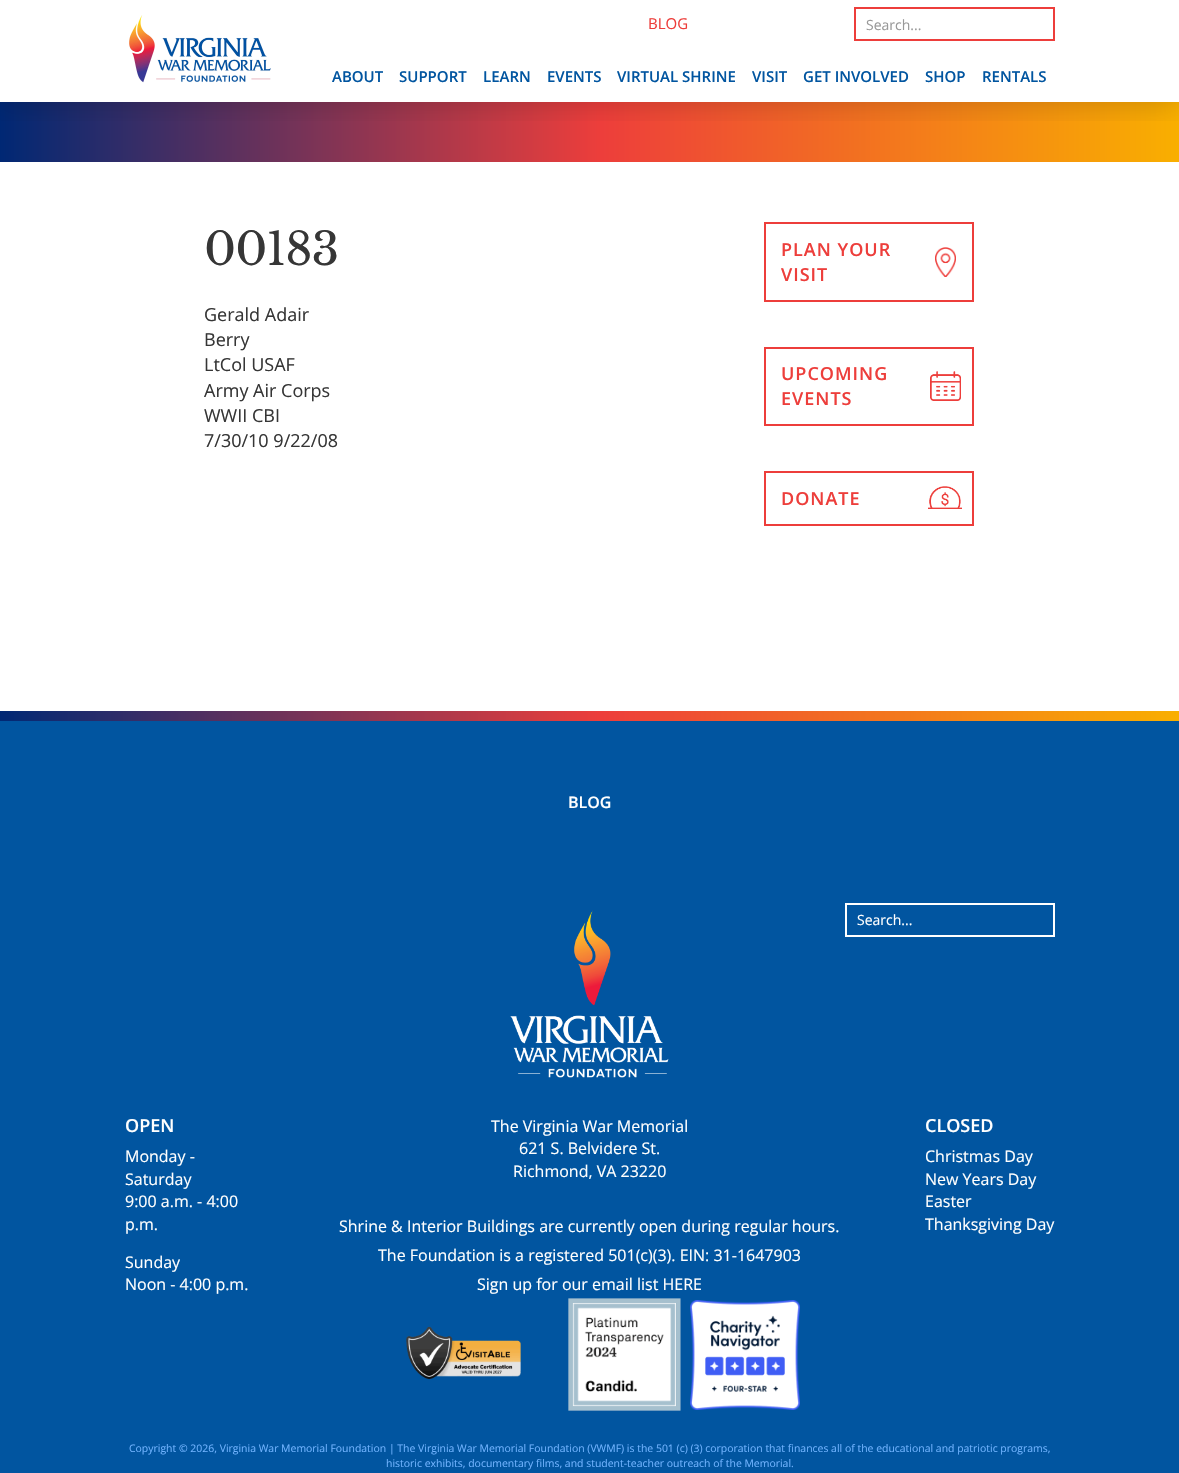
void draw(SkCanvas* canvas) {
  SkPaint paint;
  paint.setAntiAlias(true);
  auto face = [&](const char* family, int weight, float size, bool italic = false) {
    SkFontStyle style(weight, SkFontStyle::kNormal_Width,
      italic ? SkFontStyle::kItalic_Slant : SkFontStyle::kUpright_Slant);
    SkFont result(fontMgr->matchFamilyStyle(family, style), size);
    result.setSubpixel(true);
    return result;
  };
  auto writeSpaced = [&](const char* s, float x, float y, const SkFont& font, const SkPaint& ink, float letter, float word) {
    std::vector<SkGlyphID> glyphs(font.countText(s, strlen(s), SkTextEncoding::kUTF8));
    std::vector<float> xs(glyphs.size());
    font.textToGlyphs(s, strlen(s), SkTextEncoding::kUTF8, glyphs);
    font.getXPos(glyphs, xs, x);
    float extra = 0;
    for (size_t i = 0; i < glyphs.size(); i++) {
      xs[i] += extra;
      extra += letter + word * (glyphs[i] == font.unicharToGlyph(' '));
    }
    canvas->drawTextBlob(SkTextBlob::MakeFromPosHGlyphs(glyphs, xs, y, font), 0, 0, ink);
  };
  auto paste = [&](const char* path, float x, float y, float w, float h) {
    auto image = SkImages::DeferredFromEncodedData(SkData::MakeFromFileName(path));
    canvas->drawImageRect(image, SkRect::MakeXYWH(x, y, w, h), SkSamplingOptions());
  };
  canvas->clear(0xffffffff);
  {
    const SkColor colors[] = {0xff002874, 0xffed3e3b, 0xfff9af00};
    const float stops[] = {0, 0.51f, 1};
    const SkPoint ends[] = {{0, 132}, {1179, 132}};
    paint.setShader(SkGradientShader::MakeLinear(ends, colors, stops, 3, SkTileMode::kClamp));
    paint.setAlpha(255);
  }
  canvas->drawRect(SkRect::MakeXYWH(0, 102, 1179, 60), paint);
  canvas->save();
  canvas->clipRect(SkRect::MakeXYWH(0, 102, 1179, 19));
  paint.setShader(nullptr);
  paint.setColor(0x33000000);
  paint.setMaskFilter(SkMaskFilter::MakeBlur(kNormal_SkBlurStyle, 15));
  canvas->drawRect(SkRect::MakeXYWH(0, 0, 1179, 102), paint);
  paint.setMaskFilter(nullptr);
  canvas->restore();
  paste("img/1.png", 129, 15, 142, 68);
  paint.setStroke(true);
  paint.setStrokeWidth(2);
  paint.setColor(0xffed3e3b);
  canvas->drawRect(SkRect::MakeXYWH(855, 8, 199, 32), paint);
  canvas->drawRect(SkRect::MakeXYWH(765, 223, 208, 78), paint);
  paste("img/2.png", 935, 247, 21, 30);
  canvas->drawRect(SkRect::MakeXYWH(765, 348, 208, 77), paint);
  paste("img/3.png", 930, 371, 31, 30);
  canvas->drawRect(SkRect::MakeXYWH(765, 472, 208, 53), paint);
  paste("img/4.png", 928, 486, 34, 23);
  paint.setStroke(false);
  paint.setColor(0xff0155a0);
  canvas->drawRect(SkRect::MakeXYWH(0, 721, 1179, 752), paint);
  {
    const SkColor colors[] = {0xff002874, 0xffed3e3b, 0xfff9af00};
    const float stops[] = {0, 0.51f, 1};
    const SkPoint ends[] = {{0, 716}, {1179, 716}};
    paint.setShader(SkGradientShader::MakeLinear(ends, colors, stops, 3, SkTileMode::kClamp));
    paint.setAlpha(255);
  }
  canvas->drawRect(SkRect::MakeXYWH(0, 711, 1179, 10), paint);
  paste("img/5.png", 510, 910, 159, 168);
  paint.setStroke(true);
  paint.setShader(nullptr);
  paint.setColor(0xffffffff);
  canvas->drawRect(SkRect::MakeXYWH(846, 904, 208, 32), paint);
  paste("img/6.png", 406, 1326, 115, 54);
  paste("img/7.png", 568, 1298, 113, 113);
  paste("img/8.png", 690, 1300, 110, 110);
  auto f0 = face("Open Sans", 400, 15);
  paint.setStroke(false);
  paint.setColor(0xffed3e3b);
  canvas->drawString("BLOG", 648, 29, f0, paint);
  auto f1 = face("Open Sans", 400, 14);
  paint.setColor(0xff999999);
  canvas->drawString("Search...", 866, 30, f1, paint);
  auto f2 = face("Open Sans", 600, 15);
  paint.setColor(0xff0155a0);
  {
    const struct { const char* s; float x, y; } items[] = {
      {"ABOUT", 332, 82},
      {"SUPPORT", 399, 82},
      {"LEARN", 483, 82},
      {"EVENTS", 547, 82},
      {"VIRTUAL SHRINE", 617, 82},
      {"VISIT", 752, 82},
      {"GET INVOLVED", 803, 82},
      {"SHOP", 925, 82},
      {"RENTALS", 982, 82},
    };
    for (auto [s, x, y] : items) {
      canvas->drawString(s, x, y, f2, paint);
    }
  }
  auto f3 = face("Libre Baskerville", 400, 45);
  paint.setColor(0xff363636);
  writeSpaced("00183", 204, 265, f3, paint, -1, 0);
  auto f4 = face("Open Sans", 400, 18);
  {
    const struct { const char* s; float x, y; } items[] = {
      {"Gerald Adair", 204, 321},
      {"Berry", 204, 346},
      {"LtCol USAF", 204, 371},
      {"Army Air Corps", 204, 397},
      {"WWII CBI", 204, 422},
      {"7/30/10 9/22/08", 204, 447},
    };
    for (auto [s, x, y] : items) {
      canvas->drawString(s, x, y, f4, paint);
    }
  }
  auto f5 = face("Open Sans", 600, 18);
  paint.setColor(0xffed3e3b);
  {
    const struct { const char* s; float x, y; } items[] = {
      {"PLAN YOUR", 781, 256},
      {"VISIT", 781, 281},
      {"UPCOMING", 781, 380},
      {"EVENTS", 781, 405},
      {"DONATE", 781, 505},
    };
    for (auto [s, x, y] : items) {
      writeSpaced(s, x, y, f5, paint, 1, 0);
    }
  }
  auto f6 = face("Open Sans", 600, 16);
  paint.setColor(0xffffffff);
  canvas->drawString("BLOG", 568, 808, f6, paint);
  canvas->drawString("Search...", 857, 925, f1, paint);
  canvas->drawString("OPEN", 125, 1132, f5, paint);
  auto f7 = face("Open Sans", 400, 16);
  {
    const struct { const char* s; float x, y; } items[] = {
      {"Monday -", 125, 1162},
      {"Saturday", 125, 1185},
      {"9:00 a.m. - 4:00", 125, 1207},
      {"p.m.", 125, 1230},
      {"Sunday", 125, 1268},
      {"Noon - 4:00 p.m.", 125, 1290},
      {"The Virginia War Memorial", 491, 1132},
      {"621 S. Belvidere St.", 519, 1154},
      {"Richmond, VA 23220", 513, 1177},
      {"Shrine & Interior Buildings are currently open during regular hours.", 339, 1232},
      {"The Foundation is a registered 501(c)(3). EIN: 31-1647903", 378, 1261},
      {"Sign up for our email list HERE", 477, 1290},
    };
    for (auto [s, x, y] : items) {
      canvas->drawString(s, x, y, f7, paint);
    }
  }
  canvas->drawString("CLOSED", 925, 1132, f5, paint);
  {
    const struct { const char* s; float x, y; } items[] = {
      {"Christmas Day", 925, 1162},
      {"New Years Day", 925, 1185},
      {"Easter", 925, 1207},
      {"Thanksgiving Day", 925, 1230},
    };
    for (auto [s, x, y] : items) {
      canvas->drawString(s, x, y, f7, paint);
    }
  }
  auto f8 = face("Open Sans", 400, 10.45f);
  paint.setColor(0xff6fb2fe);
  canvas->drawString("Copyright © 2026, Virginia War Memorial Foundation | The Virginia War Memorial Foundation (VWMF) is the 501 (c) (3) corporation that finances all of the educational and patriotic programs,", 129, 1452, f8, paint);
  canvas->drawString("historic exhibits, documentary films, and student-teacher outreach of the Memorial.", 386, 1467, f8, paint);
}
